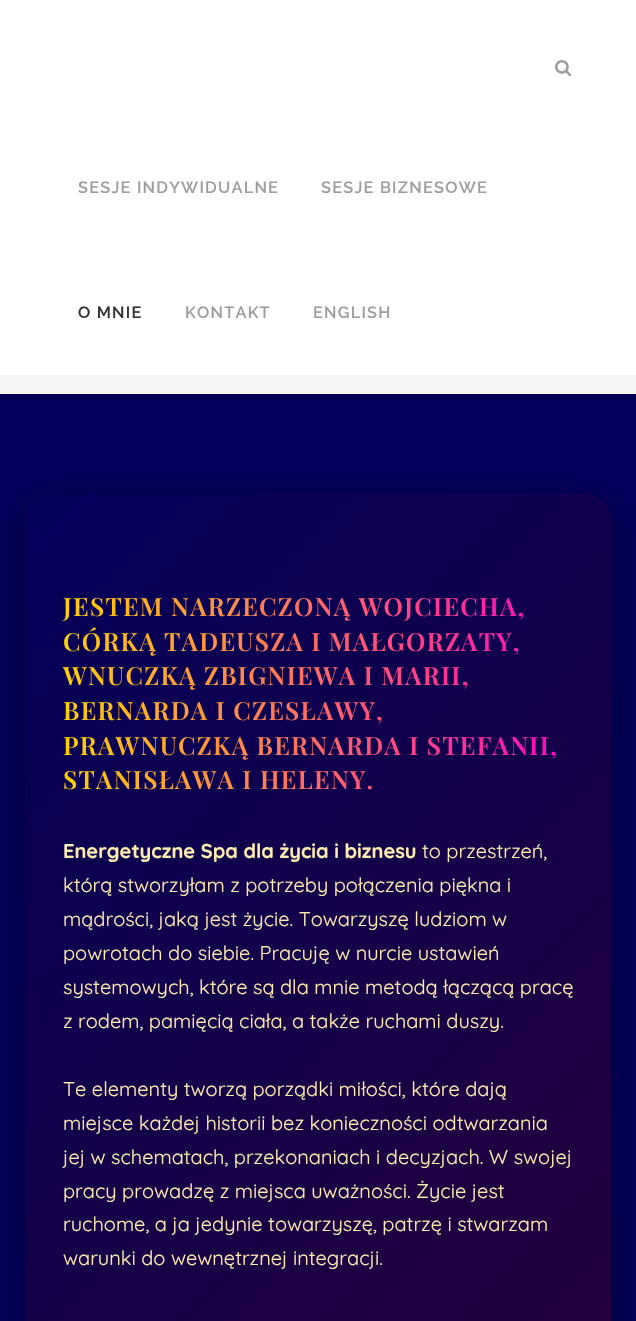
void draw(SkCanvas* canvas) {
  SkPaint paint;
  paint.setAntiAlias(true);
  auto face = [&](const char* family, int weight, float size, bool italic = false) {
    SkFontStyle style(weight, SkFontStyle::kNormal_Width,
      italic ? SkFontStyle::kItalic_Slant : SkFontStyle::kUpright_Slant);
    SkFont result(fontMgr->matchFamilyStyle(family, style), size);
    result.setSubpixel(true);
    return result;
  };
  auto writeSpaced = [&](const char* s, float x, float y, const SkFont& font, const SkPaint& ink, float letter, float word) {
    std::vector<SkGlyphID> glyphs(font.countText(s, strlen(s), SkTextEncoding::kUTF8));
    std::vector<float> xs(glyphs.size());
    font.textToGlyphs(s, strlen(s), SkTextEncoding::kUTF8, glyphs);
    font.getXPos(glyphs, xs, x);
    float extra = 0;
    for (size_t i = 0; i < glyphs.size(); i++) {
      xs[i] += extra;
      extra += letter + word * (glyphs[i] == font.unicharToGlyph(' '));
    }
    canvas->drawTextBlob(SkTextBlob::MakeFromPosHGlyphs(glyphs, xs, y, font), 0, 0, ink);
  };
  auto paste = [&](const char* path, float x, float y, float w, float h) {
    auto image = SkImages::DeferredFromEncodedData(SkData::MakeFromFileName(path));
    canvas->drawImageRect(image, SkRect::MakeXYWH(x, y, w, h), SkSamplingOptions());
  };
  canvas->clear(0xfff6f6f6);
  paint.setColor(0xffffffff);
  canvas->drawRect(SkRect::MakeXYWH(0, 0, 636, 375), paint);
  paste("img/1.png", 555, 60, 17, 17);
  paint.setColor(0xff03005a);
  canvas->drawRect(SkRect::MakeXYWH(0, 394, 636, 927), paint);
  paint.setColor(0x4d000000);
  paint.setMaskFilter(SkMaskFilter::MakeBlur(kNormal_SkBlurStyle, 19));
  canvas->drawRoundRect(SkRect::MakeXYWH(25, 504, 586, 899), 25, 25, paint);
  paint.setMaskFilter(nullptr);
  {
    const SkColor colors[] = {0xff03005a, 0xff2a0036};
    const float stops[] = {0, 1};
    const SkPoint ends[] = {{-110, 628}, {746, 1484}};
    paint.setShader(SkGradientShader::MakeLinear(ends, colors, stops, 2, SkTileMode::kClamp));
    paint.setAlpha(255);
  }
  canvas->drawRoundRect(SkRect::MakeXYWH(25, 494, 586, 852), 25, 25, paint);
  auto f0 = face("Raleway", 600, 16.25f);
  paint.setShader(nullptr);
  paint.setColor(0xff9d9d9d);
  writeSpaced("SESJE INDYWIDUALNE", 78, 193, f0, paint, 1.25f, 0);
  writeSpaced("SESJE BIZNESOWE", 321, 193, f0, paint, 1.25f, 0);
  paint.setColor(0xff303030);
  writeSpaced("O MNIE", 78, 318, f0, paint, 1.25f, 0);
  paint.setColor(0xff9d9d9d);
  writeSpaced("KONTAKT", 185, 318, f0, paint, 1.25f, 0);
  writeSpaced("ENGLISH", 313, 318, f0, paint, 1.25f, 0);
  auto f1 = face("Playfair Display", 600, 25);
  {
    const SkColor colors[] = {0xffffd100, 0xffff00c8};
    const float stops[] = {0, 1};
    const SkPoint ends[] = {{63, 693}, {574, 693}};
    paint.setShader(SkGradientShader::MakeLinear(ends, colors, stops, 2, SkTileMode::kClamp));
    paint.setAlpha(255);
  }
  {
    const struct { const char* s; float x, y; } items[] = {
      {"JESTEM NARZECZONĄ WOJCIECHA,", 63, 616},
      {"CÓRKĄ TADEUSZA I MAŁGORZATY,", 63, 651},
      {"WNUCZKĄ ZBIGNIEWA I MARII,", 63, 685},
      {"BERNARDA I CZESŁAWY,", 63, 720},
      {"PRAWNUCZKĄ BERNARDA I STEFANII,", 63, 755},
      {"STANISŁAWA I HELENY.", 63, 789},
    };
    for (auto [s, x, y] : items) {
      writeSpaced(s, x, y, f1, paint, 1.25f, 0);
    }
  }
  auto f2 = face("Quicksand", 700, 20);
  paint.setShader(nullptr);
  paint.setColor(0xffffefae);
  canvas->drawString("Energetyczne Spa dla życia i biznesu", 63, 858, f2, paint);
  auto f3 = face("Quicksand", 400, 20);
  {
    const struct { const char* s; float x, y; } items[] = {
      {"to przestrzeń,", 422, 858},
      {"którą stworzyłam z potrzeby połączenia piękna i", 63, 892},
      {"mądrości, jaką jest życie. Towarzyszę ludziom w", 63, 926},
      {"powrotach do siebie. Pracuję w nurcie ustawień", 63, 960},
      {"systemowych, które są dla mnie metodą łączącą pracę", 63, 994},
      {"z rodem, pamięcią ciała, a także ruchami duszy.", 63, 1028},
      {"Te elementy tworzą porządki miłości, które dają", 63, 1096},
      {"miejsce każdej historii bez konieczności odtwarzania", 63, 1130},
      {"jej w schematach, przekonaniach i decyzjach. W swojej", 63, 1164},
      {"pracy prowadzę z miejsca uważności. Życie jest", 63, 1198},
      {"ruchome, a ja jedynie towarzyszę, patrzę i stwarzam", 63, 1231},
      {"warunki do wewnętrznej integracji.", 63, 1265},
    };
    for (auto [s, x, y] : items) {
      canvas->drawString(s, x, y, f3, paint);
    }
  }
}
